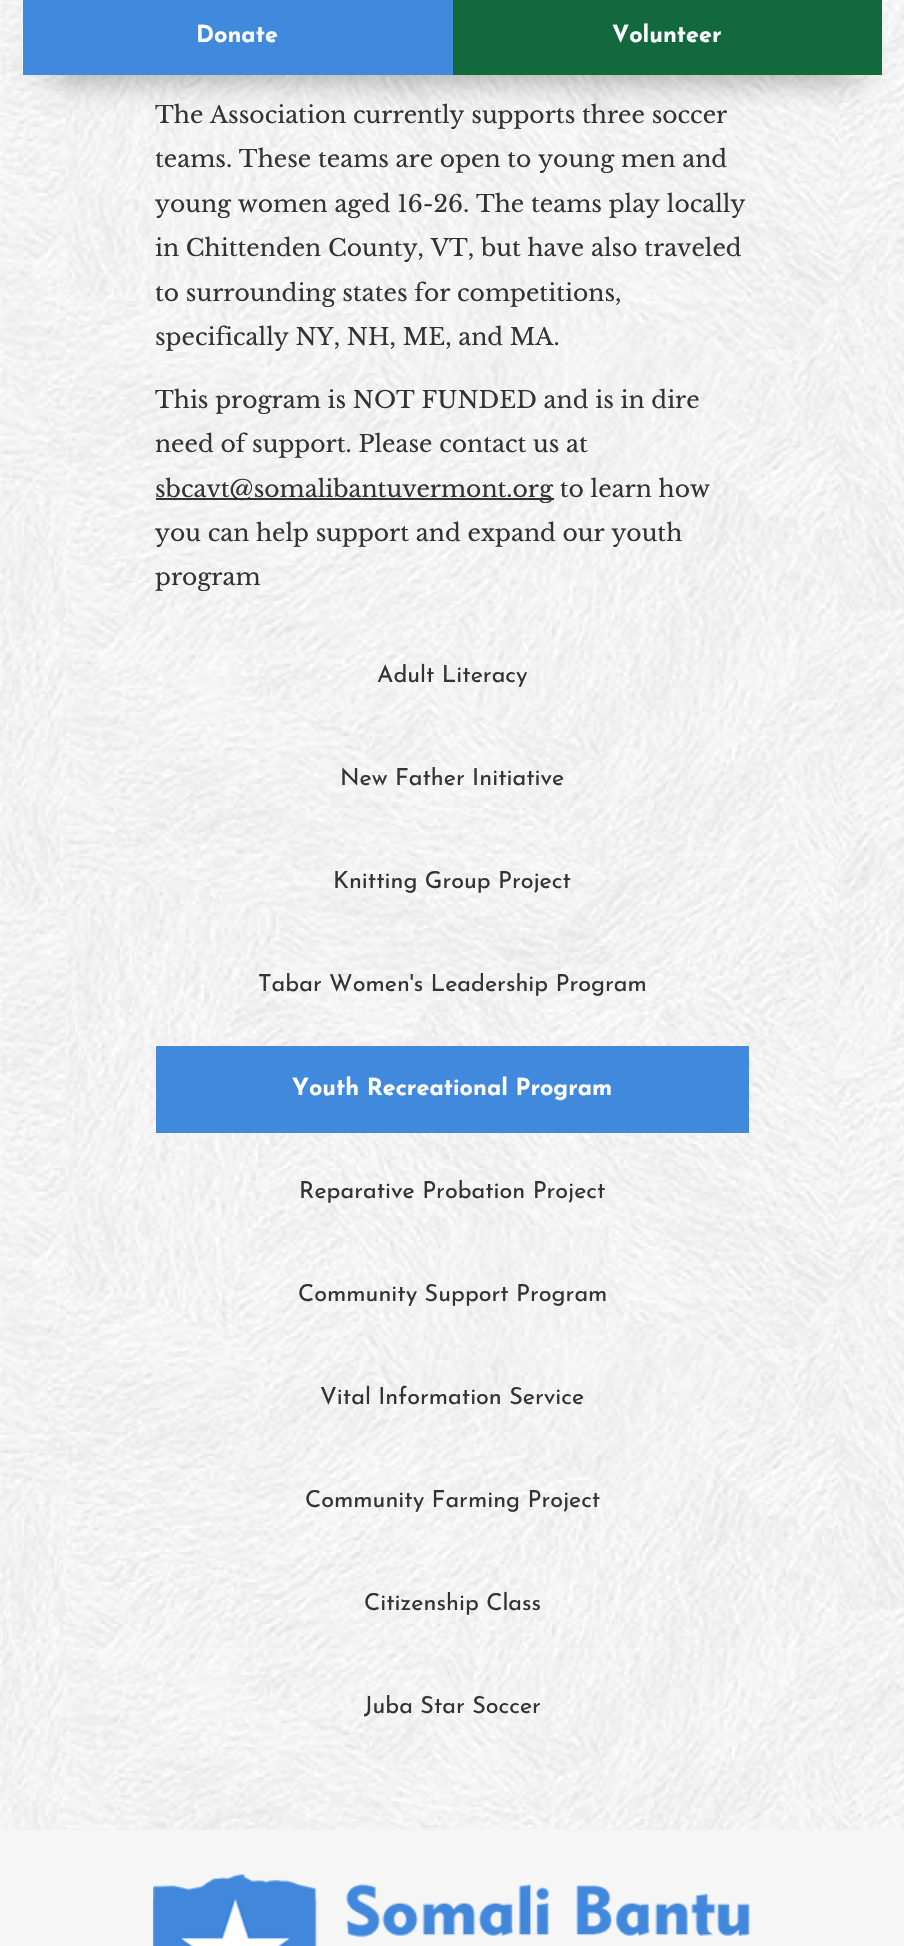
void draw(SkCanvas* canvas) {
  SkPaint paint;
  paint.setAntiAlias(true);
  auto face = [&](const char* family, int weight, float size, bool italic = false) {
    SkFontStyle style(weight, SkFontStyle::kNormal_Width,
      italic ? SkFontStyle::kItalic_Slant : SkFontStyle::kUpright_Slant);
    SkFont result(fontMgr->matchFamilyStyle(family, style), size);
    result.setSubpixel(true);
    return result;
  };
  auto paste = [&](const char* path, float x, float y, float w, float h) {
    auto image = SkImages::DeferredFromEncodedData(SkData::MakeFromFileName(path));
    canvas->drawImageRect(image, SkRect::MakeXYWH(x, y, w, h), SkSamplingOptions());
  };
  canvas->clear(0xffffffff);
  paste("img/1.png", 0, 0, 904, 1830);
  paste("img/3.png", 66, 75, 773, 1755);
  paint.setColor(0x7a000000);
  paint.setMaskFilter(SkMaskFilter::MakeBlur(kNormal_SkBlurStyle, 18));
  canvas->drawRect(SkRect::MakeXYWH(50, 50, 808, 24), paint);
  paint.setMaskFilter(nullptr);
  paste("img/2.png", 22, 0, 1, 74);
  {
    const struct { float x, y, w, h; SkColor color; } items[] = {
      {23, 0, 430, 75, 0xff4189dd},
      {453, 0, 429, 75, 0xff11693d},
      {156, 498, 398, 2, 0xff333333},
      {156, 1046, 593, 87, 0xff4189dd},
      {0, 1830, 904, 116, 0xfff6f6f6},
    };
    for (auto [x, y, w, h, color] : items) {
      paint.setColor(color);
      canvas->drawRect(SkRect::MakeXYWH(x, y, w, h), paint);
    }
  }
  paste("img/4.png", 153, 1874, 598, 72);
  auto f0 = face("Josefin Sans", 700, 23.4f);
  paint.setColor(0xffffffff);
  canvas->drawString("Donate", 196, 42, f0, paint);
  canvas->drawString("Volunteer", 612, 42, f0, paint);
  auto f1 = face("Libre Baskerville", 400, 23.4f);
  paint.setColor(0xff333333);
  {
    const struct { const char* s; float x, y; } items[] = {
      {"The Association currently supports three soccer", 155, 123},
      {"teams. These teams are open to young men and", 155, 167},
      {"young women aged 16-26. The teams play locally", 155, 212},
      {"in Chittenden County, VT, but have also traveled", 155, 256},
      {"to surrounding states for competitions,", 155, 301},
      {"specifically NY, NH, ME, and MA.", 155, 345},
      {"This program is NOT FUNDED and is in dire", 155, 408},
      {"need of support. Please contact us at", 155, 452},
      {"sbcavt@somalibantuvermont.org to learn how", 155, 497},
      {"you can help support and expand our youth", 155, 541},
      {"program", 155, 585},
    };
    for (auto [s, x, y] : items) {
      canvas->drawString(s, x, y, f1, paint);
    }
  }
  auto f2 = face("Josefin Sans", 400, 23.4f);
  {
    const struct { const char* s; float x, y; } items[] = {
      {"Adult Literacy", 377, 682},
      {"New Father Initiative", 340, 785},
      {"Knitting Group Project", 333, 888},
      {"Tabar Women's Leadership Program", 258, 991},
    };
    for (auto [s, x, y] : items) {
      canvas->drawString(s, x, y, f2, paint);
    }
  }
  paint.setColor(0xffffffff);
  canvas->drawString("Youth Recreational Program", 292, 1095, f0, paint);
  paint.setColor(0xff333333);
  {
    const struct { const char* s; float x, y; } items[] = {
      {"Reparative Probation Project", 299, 1198},
      {"Community Support Program", 298, 1301},
      {"Vital Information Service", 320, 1404},
      {"Community Farming Project", 305, 1507},
      {"Citizenship Class", 364, 1610},
      {"Juba Star Soccer", 364, 1713},
    };
    for (auto [s, x, y] : items) {
      canvas->drawString(s, x, y, f2, paint);
    }
  }
}
